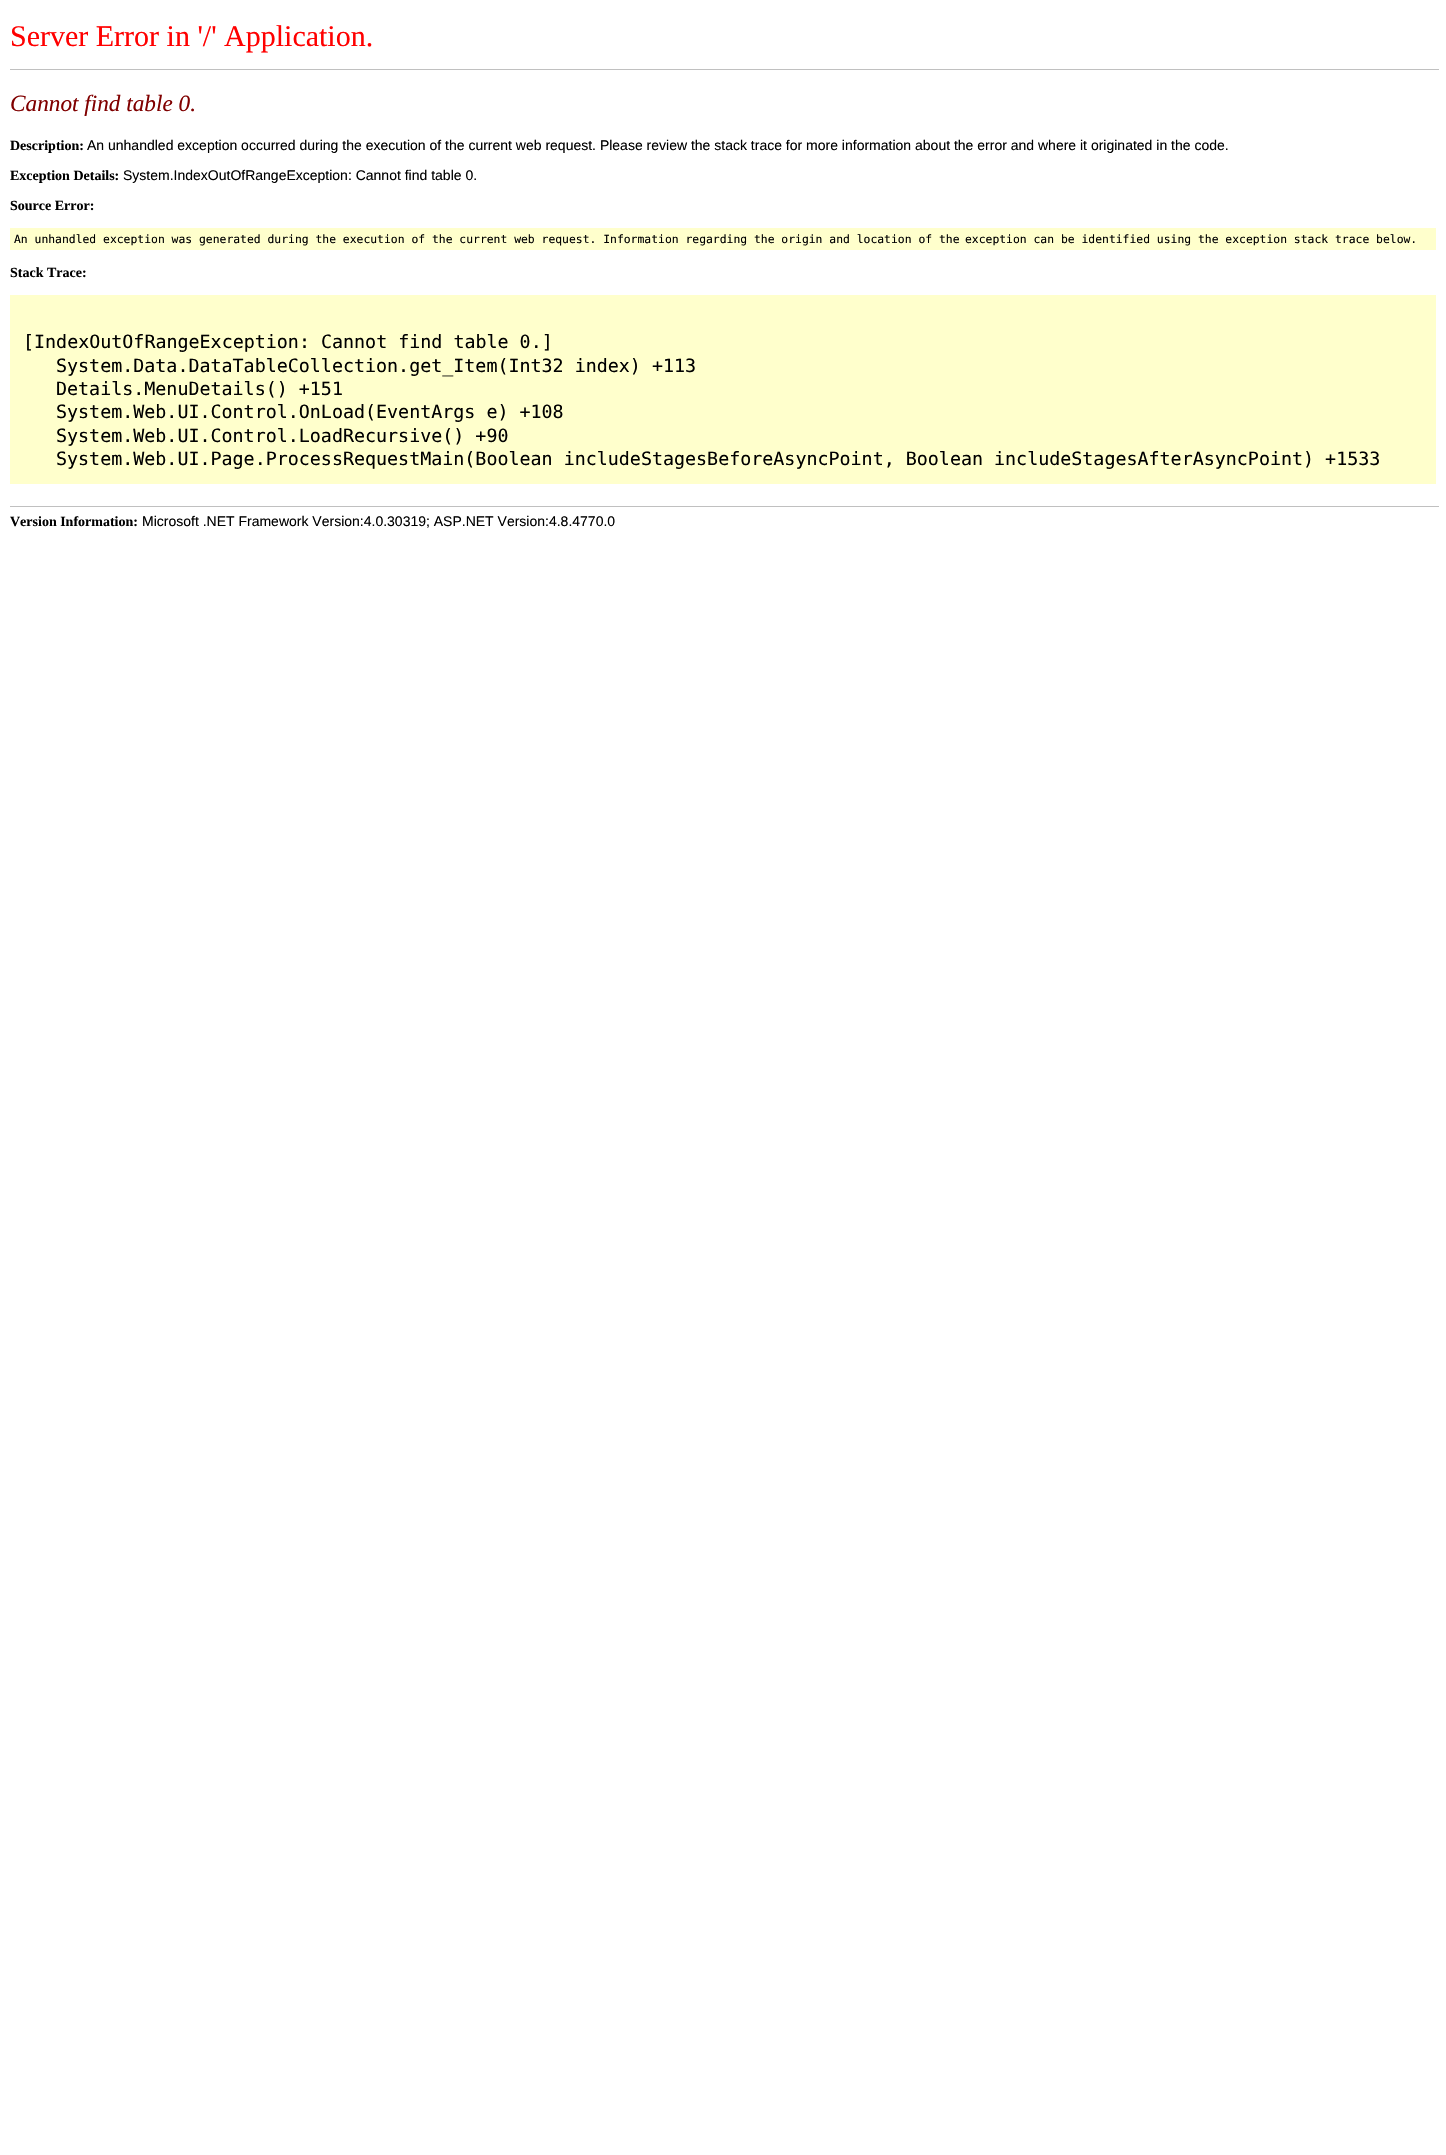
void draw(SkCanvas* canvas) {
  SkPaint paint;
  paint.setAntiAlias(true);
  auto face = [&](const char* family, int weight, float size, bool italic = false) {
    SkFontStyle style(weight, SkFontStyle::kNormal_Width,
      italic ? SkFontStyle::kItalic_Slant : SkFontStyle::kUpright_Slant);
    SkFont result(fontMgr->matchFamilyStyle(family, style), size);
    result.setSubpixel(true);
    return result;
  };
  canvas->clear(0xffffffff);
  {
    const struct { float x, y, w, h; SkColor color; } items[] = {
      {10, 69, 1429, 1, 0xffc0c0c0},
      {10, 228, 1426, 22, 0xffffffcc},
      {10, 295, 1426, 189, 0xffffffcc},
      {10, 506, 1429, 1, 0xffc0c0c0},
    };
    for (auto [x, y, w, h, color] : items) {
      paint.setColor(color);
      canvas->drawRect(SkRect::MakeXYWH(x, y, w, h), paint);
    }
  }
  auto f0 = face("Liberation Serif", 400, 30);
  paint.setColor(0xffff0000);
  canvas->drawString("Server Error in '/' Application.", 10, 46, f0, paint);
  auto f1 = face("Liberation Serif", 400, 23.25f, true);
  paint.setColor(0xff800000);
  canvas->drawString("Cannot find table 0.", 10, 111, f1, paint);
  auto f2 = face("Liberation Serif", 700, 14);
  paint.setColor(0xff000000);
  canvas->drawString("Description:", 10, 150, f2, paint);
  auto f3 = face("Liberation Sans", 400, 14);
  canvas->drawString("An unhandled exception occurred during the execution of the current web request. Please review the stack trace for more information about the error and where it originated in the code.", 87, 150, f3, paint);
  canvas->drawString("Exception Details:", 10, 180, f2, paint);
  canvas->drawString("System.IndexOutOfRangeException: Cannot find table 0.", 123, 180, f3, paint);
  canvas->drawString("Source Error:", 10, 210, f2, paint);
  auto f4 = face("DejaVu Sans Mono", 400, 11.38f);
  canvas->drawString("An unhandled exception was generated during the execution of the current web request. Information regarding the origin and location of the", 14, 243, f4, paint);
  canvas->drawString("exception can be identified using the exception stack trace below.", 965, 243, f4, paint);
  canvas->drawString("Stack Trace:", 10, 277, f2, paint);
  auto f5 = face("DejaVu Sans Mono", 400, 18.33f);
  {
    const struct { const char* s; float x, y; } items[] = {
      {"[IndexOutOfRangeException: Cannot find table 0.]", 23, 348},
      {"System.Data.DataTableCollection.get_Item(Int32 index) +113", 56, 372},
      {"Details.MenuDetails() +151", 56, 395},
      {"System.Web.UI.Control.OnLoad(EventArgs e) +108", 56, 418},
      {"System.Web.UI.Control.LoadRecursive() +90", 56, 442},
      {"System.Web.UI.Page.ProcessRequestMain(Boolean includeStagesBeforeAsyncPoint, Boolean includeStagesAfterAsyncPoint) +1533", 56, 465},
    };
    for (auto [s, x, y] : items) {
      canvas->drawString(s, x, y, f5, paint);
    }
  }
  canvas->drawString("Version Information:", 10, 526, f2, paint);
  canvas->drawString("Microsoft .NET Framework Version:4.0.30319; ASP.NET Version:4.8.4770.0", 142, 526, f3, paint);
}
